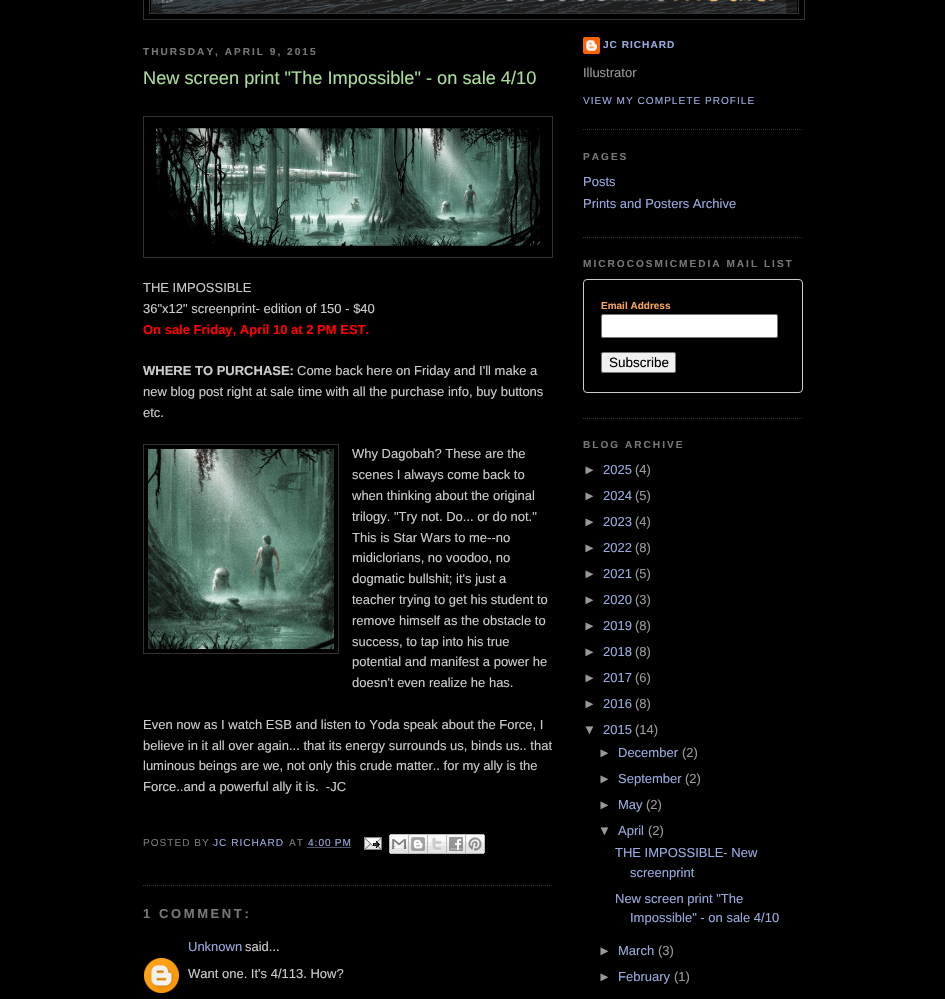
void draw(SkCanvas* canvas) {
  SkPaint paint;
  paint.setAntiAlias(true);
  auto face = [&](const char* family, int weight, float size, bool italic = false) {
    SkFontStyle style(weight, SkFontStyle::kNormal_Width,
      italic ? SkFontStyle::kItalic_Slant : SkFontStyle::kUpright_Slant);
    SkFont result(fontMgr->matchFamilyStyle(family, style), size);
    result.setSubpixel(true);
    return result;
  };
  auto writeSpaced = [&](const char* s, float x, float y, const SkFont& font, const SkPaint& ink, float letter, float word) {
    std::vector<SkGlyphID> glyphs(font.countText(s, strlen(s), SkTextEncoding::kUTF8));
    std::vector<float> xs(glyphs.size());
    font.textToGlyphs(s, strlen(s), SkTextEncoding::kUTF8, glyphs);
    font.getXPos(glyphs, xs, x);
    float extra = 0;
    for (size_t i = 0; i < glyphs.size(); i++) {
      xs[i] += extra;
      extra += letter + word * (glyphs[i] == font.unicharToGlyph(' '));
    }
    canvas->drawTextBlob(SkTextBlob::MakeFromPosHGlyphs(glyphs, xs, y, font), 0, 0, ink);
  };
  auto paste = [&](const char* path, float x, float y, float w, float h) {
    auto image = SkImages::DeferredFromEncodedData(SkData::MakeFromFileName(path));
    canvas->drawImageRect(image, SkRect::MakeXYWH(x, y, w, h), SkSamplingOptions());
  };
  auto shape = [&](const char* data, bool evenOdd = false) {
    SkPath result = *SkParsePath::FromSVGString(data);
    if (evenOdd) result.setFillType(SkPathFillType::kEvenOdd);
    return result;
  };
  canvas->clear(0xff000000);
  paint.setStroke(true);
  paint.setStrokeWidth(1);
  paint.setColor(0xff333333);
  canvas->drawRect(SkRect::MakeXYWH(143.5f, -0.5f, 661, 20), paint);
  canvas->drawRect(SkRect::MakeXYWH(149.5f, -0.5f, 649, 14), paint);
  paste("img/1.png", 151, 0, 646, 13);
  paint.setPathEffect(SkDashPathEffect::Make({{1, 1}}, 0));
  canvas->drawPath(shape("M143 885.5H553"), paint);
  paint.setPathEffect(nullptr);
  canvas->drawRect(SkRect::MakeXYWH(143.5f, 116.5f, 409, 141), paint);
  paste("img/2.png", 156, 126, 384, 121);
  canvas->drawRect(SkRect::MakeXYWH(143.5f, 444.5f, 195, 209), paint);
  paste("img/3.png", 148, 449, 186, 200);
  paint.setColor(0xff99aadd);
  paint.setPathEffect(SkDashPathEffect::Make({{1, 1}}, 0));
  canvas->drawPath(shape("M307.5 847.5H351.5"), paint);
  paint.setPathEffect(nullptr);
  paste("img/4.png", 364, 837, 18, 13);
  paste("img/5.png", 389, 834, 20, 20);
  paste("img/6.png", 409, 834, 19, 20);
  paste("img/7.png", 428, 834, 19, 20);
  paste("img/8.png", 447, 834, 19, 20);
  paste("img/9.png", 466, 834, 19, 20);
  paste("img/10.png", 144, 958, 35, 35);
  paint.setColor(0xff333333);
  paint.setPathEffect(SkDashPathEffect::Make({{1, 1}}, 0));
  canvas->drawPath(shape("M583 129.5H803"), paint);
  paint.setPathEffect(nullptr);
  paste("img/11.png", 583, 37, 17, 17);
  paint.setPathEffect(SkDashPathEffect::Make({{1, 1}}, 0));
  canvas->drawPath(shape("M583 237.5H803"), paint);
  paint.setPathEffect(nullptr);
  paint.setPathEffect(SkDashPathEffect::Make({{1, 1}}, 0));
  canvas->drawPath(shape("M583 418.5H803"), paint);
  paint.setPathEffect(nullptr);
  paint.setColor(0xffcccccc);
  canvas->drawRoundRect(SkRect::MakeXYWH(583.5f, 279.5f, 219, 113), 3.5f, 3.5f, paint);
  paint.setStroke(false);
  paint.setColor(0xffffffff);
  canvas->drawRoundRect(SkRect::MakeXYWH(601.5f, 314.5f, 176, 23), 1.5f, 1.5f, paint);
  paint.setStroke(true);
  paint.setColor(0xff767676);
  canvas->drawRoundRect(SkRect::MakeXYWH(601.5f, 314.5f, 176, 23), 1.5f, 1.5f, paint);
  paint.setStroke(false);
  paint.setColor(0xffefefef);
  canvas->drawRoundRect(SkRect::MakeXYWH(601.5f, 352.5f, 74, 20), 1.5f, 1.5f, paint);
  paint.setStroke(true);
  paint.setColor(0xff767676);
  canvas->drawRoundRect(SkRect::MakeXYWH(601.5f, 352.5f, 74, 20), 1.5f, 1.5f, paint);
  auto f0 = face("Liberation Sans", 700, 10.1f);
  paint.setStroke(false);
  paint.setColor(0xff777777);
  writeSpaced("THURSDAY, APRIL 9, 2015", 143, 55, f0, paint, 2, 0);
  auto f1 = face("Liberation Sans", 400, 18.2f);
  paint.setColor(0xffaadd99);
  canvas->drawString("New screen print \"The Impossible\" - on sale 4/10", 143, 84, f1, paint);
  auto f2 = face("Liberation Sans", 400, 13);
  paint.setColor(0xffcccccc);
  canvas->drawString("THE IMPOSSIBLE", 143, 292, f2, paint);
  canvas->drawString("36\"x12\" screenprint- edition of 150 - $40", 143, 313, f2, paint);
  auto f3 = face("Liberation Sans", 700, 13);
  paint.setColor(0xffff0000);
  canvas->drawString("On sale Friday, April 10 at 2 PM EST.", 143, 334, f3, paint);
  paint.setColor(0xffcccccc);
  canvas->drawString("WHERE TO PURCHASE:", 143, 375, f3, paint);
  {
    const struct { const char* s; float x, y; } items[] = {
      {"Come back here on Friday and I'll make a", 297, 375},
      {"new blog post right at sale time with all the purchase info, buy buttons", 143, 396},
      {"etc.", 143, 417},
      {"Why Dagobah? These are the", 352, 458},
      {"scenes I always come back to", 352, 479},
      {"when thinking about the original", 352, 500},
      {"trilogy. \"Try not. Do... or do not.\"", 352, 521},
      {"This is Star Wars to me--no", 352, 542},
      {"midiclorians, no voodoo, no", 352, 562},
      {"dogmatic bullshit; it's just a", 352, 583},
      {"teacher trying to get his student to", 352, 604},
      {"remove himself as the obstacle to", 352, 625},
      {"success, to tap into his true", 352, 646},
      {"potential and manifest a power he", 352, 666},
      {"doesn't even realize he has.", 352, 687},
      {"Even now as I watch ESB and listen to Yoda speak about the Force, I", 143, 729},
      {"believe in it all over again... that its energy surrounds us, binds us.. that", 143, 750},
      {"luminous beings are we, not only this crude matter.. for my ally is the", 143, 770},
      {"Force..and a powerful ally it is.  -JC", 143, 791},
    };
    for (auto [s, x, y] : items) {
      canvas->drawString(s, x, y, f2, paint);
    }
  }
  auto f4 = face("Liberation Sans", 400, 10.1f);
  paint.setColor(0xff777777);
  writeSpaced("POSTED BY", 143, 846, f4, paint, 1, 0);
  paint.setColor(0xff99aadd);
  writeSpaced("JC RICHARD", 213, 846, f4, paint, 1, 0);
  paint.setColor(0xff777777);
  writeSpaced("AT", 289, 846, f4, paint, 1, 0);
  paint.setColor(0xff99aadd);
  writeSpaced("4:00 PM", 308, 846, f4, paint, 1, 0);
  paint.setColor(0xff777777);
  writeSpaced("1 COMMENT:", 143, 918, f3, paint, 2.6f, 0);
  paint.setColor(0xff99aadd);
  canvas->drawString("Unknown", 188, 951, f2, paint);
  paint.setColor(0xffcccccc);
  canvas->drawString("said...", 245, 951, f2, paint);
  canvas->drawString("Want one. It's 4/113. How?", 188, 978, f2, paint);
  paint.setColor(0xff99aadd);
  writeSpaced("JC RICHARD", 603, 48, f0, paint, 1, 0);
  paint.setColor(0xff999999);
  canvas->drawString("Illustrator", 583, 77, f2, paint);
  paint.setColor(0xff99aadd);
  writeSpaced("VIEW MY COMPLETE PROFILE", 583, 104, f4, paint, 1, 0);
  paint.setColor(0xff777777);
  writeSpaced("PAGES", 583, 160, f0, paint, 2, 0);
  paint.setColor(0xff99aadd);
  canvas->drawString("Posts", 583, 186, f2, paint);
  canvas->drawString("Prints and Posters Archive", 583, 208, f2, paint);
  paint.setColor(0xff777777);
  writeSpaced("MICROCOSMICMEDIA MAIL LIST", 583, 267, f0, paint, 2, 0);
  auto f5 = face("Liberation Sans", 700, 10);
  paint.setColor(0xfff4a460);
  canvas->drawString("Email Address", 601, 309, f5, paint);
  auto f6 = face("Liberation Sans", 400, 13.5f);
  paint.setColor(0xff000000);
  canvas->drawString("Subscribe", 609, 367, f6, paint);
  paint.setColor(0xff777777);
  writeSpaced("BLOG ARCHIVE", 583, 448, f0, paint, 2, 0);
  paint.setColor(0xff999999);
  canvas->drawString("►", 583, 474, f2, paint);
  paint.setColor(0xff99aadd);
  canvas->drawString("2025", 603, 474, f2, paint);
  paint.setColor(0xff999999);
  canvas->drawString("(4)", 635, 474, f2, paint);
  canvas->drawString("►", 583, 500, f2, paint);
  paint.setColor(0xff99aadd);
  canvas->drawString("2024", 603, 500, f2, paint);
  paint.setColor(0xff999999);
  canvas->drawString("(5)", 635, 500, f2, paint);
  canvas->drawString("►", 583, 526, f2, paint);
  paint.setColor(0xff99aadd);
  canvas->drawString("2023", 603, 526, f2, paint);
  paint.setColor(0xff999999);
  canvas->drawString("(4)", 635, 526, f2, paint);
  canvas->drawString("►", 583, 552, f2, paint);
  paint.setColor(0xff99aadd);
  canvas->drawString("2022", 603, 552, f2, paint);
  paint.setColor(0xff999999);
  canvas->drawString("(8)", 635, 552, f2, paint);
  canvas->drawString("►", 583, 578, f2, paint);
  paint.setColor(0xff99aadd);
  canvas->drawString("2021", 603, 578, f2, paint);
  paint.setColor(0xff999999);
  canvas->drawString("(5)", 635, 578, f2, paint);
  canvas->drawString("►", 583, 604, f2, paint);
  paint.setColor(0xff99aadd);
  canvas->drawString("2020", 603, 604, f2, paint);
  paint.setColor(0xff999999);
  canvas->drawString("(3)", 635, 604, f2, paint);
  canvas->drawString("►", 583, 630, f2, paint);
  paint.setColor(0xff99aadd);
  canvas->drawString("2019", 603, 630, f2, paint);
  paint.setColor(0xff999999);
  canvas->drawString("(8)", 635, 630, f2, paint);
  canvas->drawString("►", 583, 656, f2, paint);
  paint.setColor(0xff99aadd);
  canvas->drawString("2018", 603, 656, f2, paint);
  paint.setColor(0xff999999);
  canvas->drawString("(8)", 635, 656, f2, paint);
  canvas->drawString("►", 583, 682, f2, paint);
  paint.setColor(0xff99aadd);
  canvas->drawString("2017", 603, 682, f2, paint);
  paint.setColor(0xff999999);
  canvas->drawString("(6)", 635, 682, f2, paint);
  canvas->drawString("►", 583, 708, f2, paint);
  paint.setColor(0xff99aadd);
  canvas->drawString("2016", 603, 708, f2, paint);
  paint.setColor(0xff999999);
  canvas->drawString("(8)", 635, 708, f2, paint);
  canvas->drawString("▼", 583, 734, f2, paint);
  paint.setColor(0xff99aadd);
  canvas->drawString("2015", 603, 734, f2, paint);
  paint.setColor(0xff999999);
  canvas->drawString("(14)", 635, 734, f2, paint);
  canvas->drawString("►", 598, 757, f2, paint);
  paint.setColor(0xff99aadd);
  canvas->drawString("December", 618, 757, f2, paint);
  paint.setColor(0xff999999);
  canvas->drawString("(2)", 682, 757, f2, paint);
  canvas->drawString("►", 598, 783, f2, paint);
  paint.setColor(0xff99aadd);
  canvas->drawString("September", 618, 783, f2, paint);
  paint.setColor(0xff999999);
  canvas->drawString("(2)", 685, 783, f2, paint);
  canvas->drawString("►", 598, 809, f2, paint);
  paint.setColor(0xff99aadd);
  canvas->drawString("May", 618, 809, f2, paint);
  paint.setColor(0xff999999);
  canvas->drawString("(2)", 646, 809, f2, paint);
  canvas->drawString("▼", 598, 835, f2, paint);
  paint.setColor(0xff99aadd);
  canvas->drawString("April", 618, 835, f2, paint);
  paint.setColor(0xff999999);
  canvas->drawString("(2)", 648, 835, f2, paint);
  paint.setColor(0xff99aadd);
  {
    const struct { const char* s; float x, y; } items[] = {
      {"THE IMPOSSIBLE- New", 615, 857},
      {"screenprint", 630, 877},
      {"New screen print \"The", 615, 903},
      {"Impossible\" - on sale 4/10", 630, 922},
    };
    for (auto [s, x, y] : items) {
      canvas->drawString(s, x, y, f2, paint);
    }
  }
  paint.setColor(0xff999999);
  canvas->drawString("►", 598, 955, f2, paint);
  paint.setColor(0xff99aadd);
  canvas->drawString("March", 618, 955, f2, paint);
  paint.setColor(0xff999999);
  canvas->drawString("(3)", 658, 955, f2, paint);
  canvas->drawString("►", 598, 981, f2, paint);
  paint.setColor(0xff99aadd);
  canvas->drawString("February", 618, 981, f2, paint);
  paint.setColor(0xff999999);
  canvas->drawString("(1)", 674, 981, f2, paint);
}
